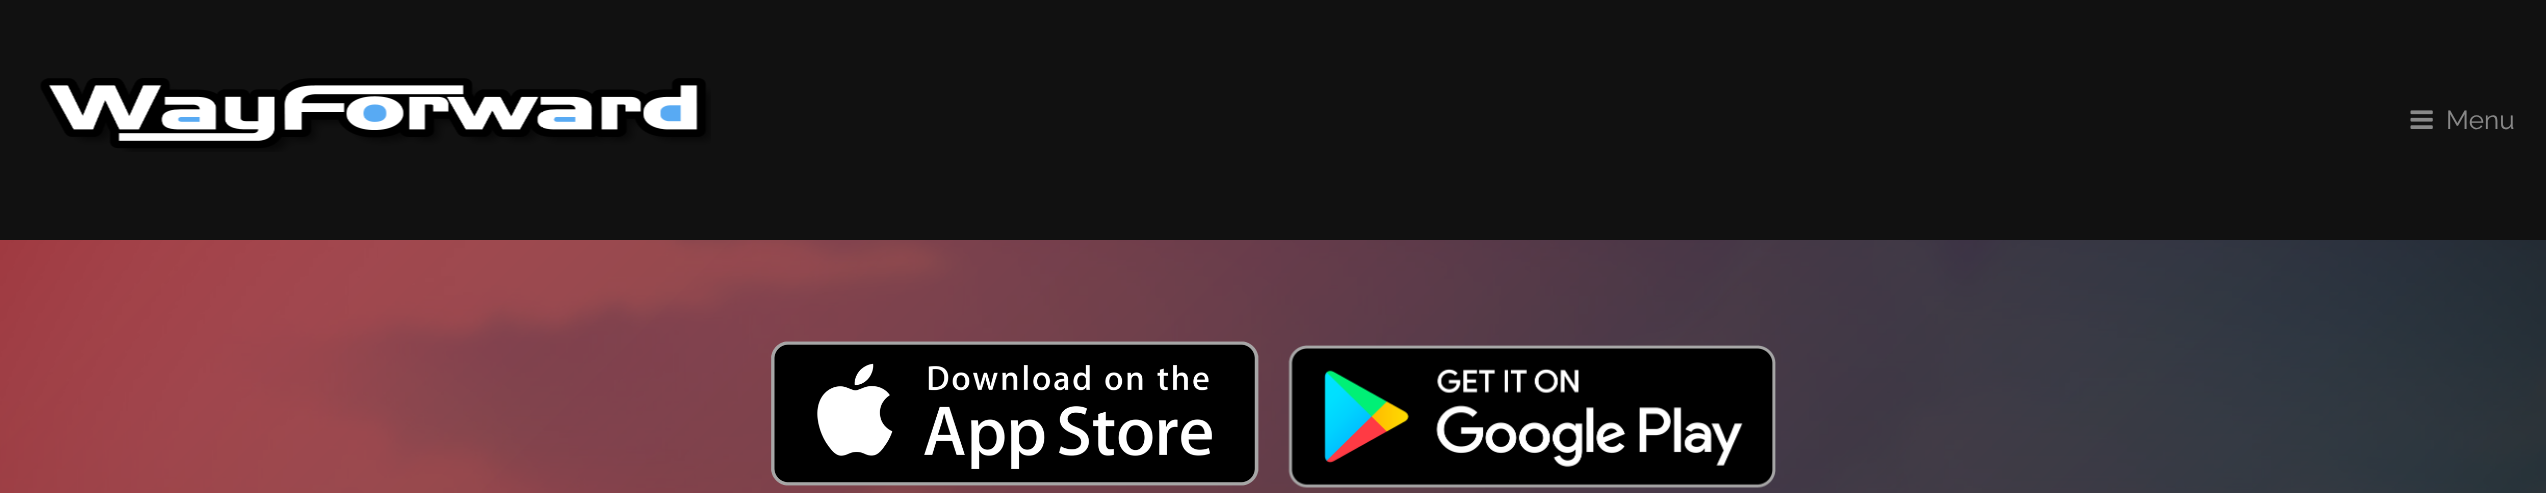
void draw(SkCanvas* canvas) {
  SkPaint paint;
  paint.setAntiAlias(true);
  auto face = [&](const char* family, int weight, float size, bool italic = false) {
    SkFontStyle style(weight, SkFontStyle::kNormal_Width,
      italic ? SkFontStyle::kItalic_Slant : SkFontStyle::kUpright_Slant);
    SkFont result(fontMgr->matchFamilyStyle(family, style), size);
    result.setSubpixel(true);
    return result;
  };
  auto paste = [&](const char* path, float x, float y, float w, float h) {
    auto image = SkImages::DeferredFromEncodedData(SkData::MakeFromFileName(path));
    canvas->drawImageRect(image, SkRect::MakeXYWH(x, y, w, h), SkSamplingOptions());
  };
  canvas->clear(0xffffffff);
  paint.setColor(0xff111111);
  canvas->drawRect(SkRect::MakeXYWH(0, 0, 2546, 240), paint);
  paste("img/1.png", 40, 78, 671, 74);
  paste("img/2.png", 2410, 110, 23, 19);
  paste("img/3.png", 0, 240, 2546, 253);
  paste("img/4.png", 771, 341, 488, 145);
  paste("img/5.png", 1288, 345, 488, 143);
  auto f0 = face("Raleway", 400, 26);
  paint.setColor(0xff888888);
  canvas->drawString("Menu", 2446, 129, f0, paint);
}
